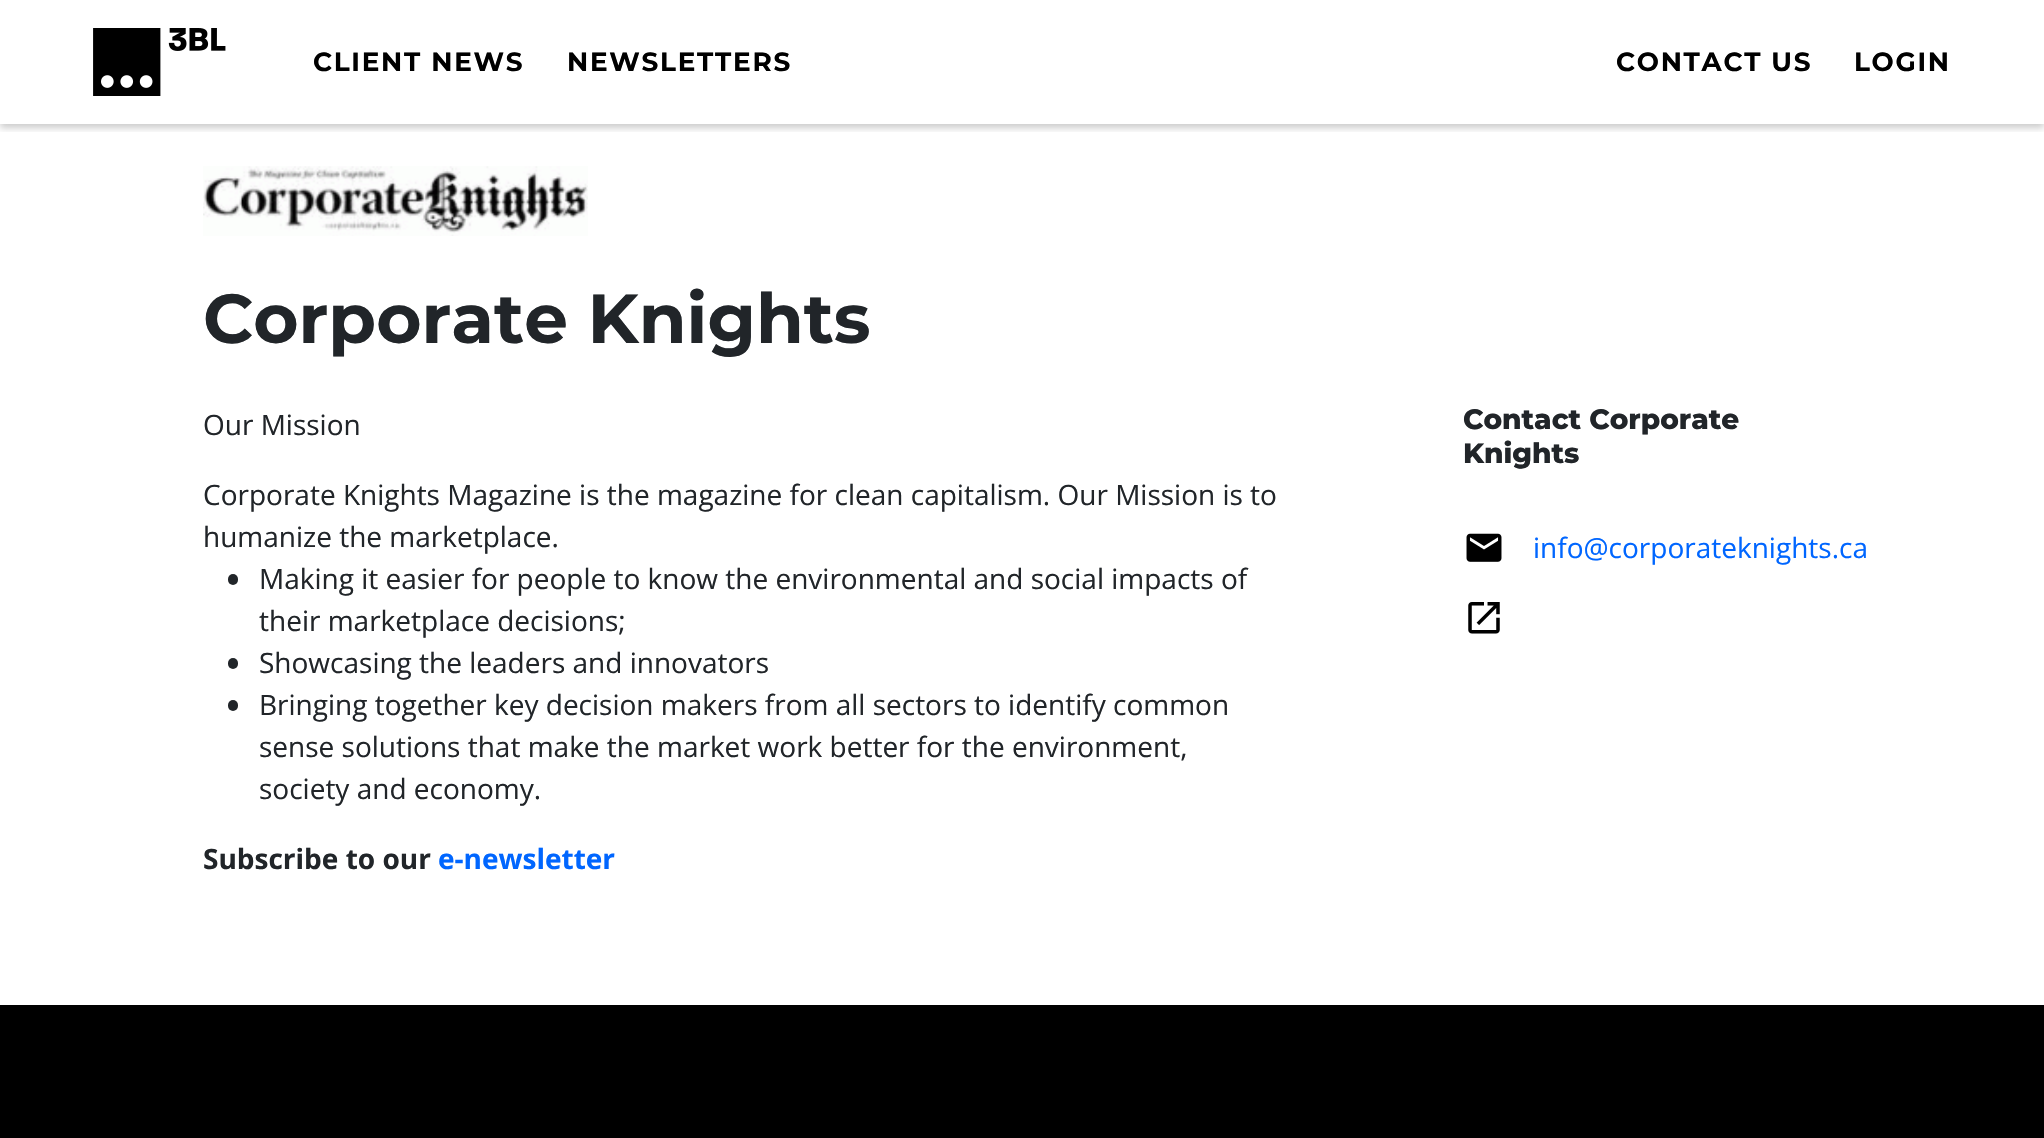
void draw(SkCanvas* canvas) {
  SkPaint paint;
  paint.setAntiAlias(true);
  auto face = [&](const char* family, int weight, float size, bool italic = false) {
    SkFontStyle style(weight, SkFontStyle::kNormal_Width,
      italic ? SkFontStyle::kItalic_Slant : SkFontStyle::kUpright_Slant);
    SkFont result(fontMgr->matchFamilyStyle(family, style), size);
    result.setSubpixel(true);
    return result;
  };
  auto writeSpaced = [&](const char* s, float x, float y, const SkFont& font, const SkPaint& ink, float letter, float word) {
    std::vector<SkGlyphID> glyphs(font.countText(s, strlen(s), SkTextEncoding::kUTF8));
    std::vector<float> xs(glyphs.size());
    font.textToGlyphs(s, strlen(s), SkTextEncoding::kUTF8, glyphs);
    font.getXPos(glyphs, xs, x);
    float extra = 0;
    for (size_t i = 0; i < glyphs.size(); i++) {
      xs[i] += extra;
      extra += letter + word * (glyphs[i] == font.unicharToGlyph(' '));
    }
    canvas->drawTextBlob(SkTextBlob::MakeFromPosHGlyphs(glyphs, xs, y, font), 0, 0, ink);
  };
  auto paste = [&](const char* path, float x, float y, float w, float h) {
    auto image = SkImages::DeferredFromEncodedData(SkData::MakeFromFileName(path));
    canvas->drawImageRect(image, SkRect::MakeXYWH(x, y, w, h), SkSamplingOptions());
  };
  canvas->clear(0xffffffff);
  canvas->save();
  canvas->clipRect(SkRect::MakeXYWH(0, 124, 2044, 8));
  paint.setColor(0x33000000);
  paint.setMaskFilter(SkMaskFilter::MakeBlur(kNormal_SkBlurStyle, 3.5f));
  canvas->drawRect(SkRect::MakeXYWH(0, 4, 2044, 124), paint);
  paint.setMaskFilter(nullptr);
  canvas->restore();
  paste("img/1.png", 93, 28, 133, 68);
  paste("img/2.png", 203, 166, 385, 70);
  paint.setColor(0xff212529);
  canvas->drawRoundRect(SkRect::MakeXYWH(228, 574, 10, 11), 5, 5, paint);
  canvas->drawRoundRect(SkRect::MakeXYWH(228, 658, 10, 11), 5, 5, paint);
  canvas->drawRoundRect(SkRect::MakeXYWH(228, 700, 10, 11), 5, 5, paint);
  paste("img/3.png", 1466, 533, 36, 29);
  paste("img/4.png", 1468, 602, 32, 32);
  paint.setColor(0xff000000);
  canvas->drawRect(SkRect::MakeXYWH(0, 1005, 2044, 133), paint);
  auto f0 = face("Montserrat", 700, 26.25f);
  {
    const struct { const char* s; float x, y; } items[] = {
      {"CLIENT NEWS", 313, 71},
      {"NEWSLETTERS", 567, 71},
      {"CONTACT US", 1616, 71},
      {"LOGIN", 1854, 71},
    };
    for (auto [s, x, y] : items) {
      writeSpaced(s, x, y, f0, paint, 1.75f, 0);
    }
  }
  auto f1 = face("Montserrat", 700, 69.25f);
  paint.setColor(0xff212529);
  canvas->drawString("Corporate Knights", 203, 343, f1, paint);
  auto f2 = face("Open Sans", 400, 28);
  {
    const struct { const char* s; float x, y; } items[] = {
      {"Our Mission", 203, 435},
      {"Corporate Knights Magazine is the magazine for clean capitalism. Our Mission is to", 203, 505},
      {"humanize the marketplace.", 203, 547},
      {"Making it easier for people to know the environmental and social impacts of", 259, 589},
      {"their marketplace decisions;", 259, 631},
      {"Showcasing the leaders and innovators", 259, 673},
      {"Bringing together key decision makers from all sectors to identify common", 259, 715},
      {"sense solutions that make the market work better for the environment,", 259, 757},
      {"society and economy.", 259, 799},
    };
    for (auto [s, x, y] : items) {
      canvas->drawString(s, x, y, f2, paint);
    }
  }
  auto f3 = face("Open Sans", 700, 28);
  canvas->drawString("Subscribe to our", 203, 869, f3, paint);
  paint.setColor(0xff0066ff);
  canvas->drawString("e-newsletter", 438, 869, f3, paint);
  auto f4 = face("Montserrat", 800, 28);
  paint.setColor(0xff212529);
  canvas->drawString("Contact Corporate", 1463, 429, f4, paint);
  canvas->drawString("Knights", 1463, 463, f4, paint);
  paint.setColor(0xff0066ff);
  canvas->drawString("info@corporateknights.ca", 1533, 558, f2, paint);
}
